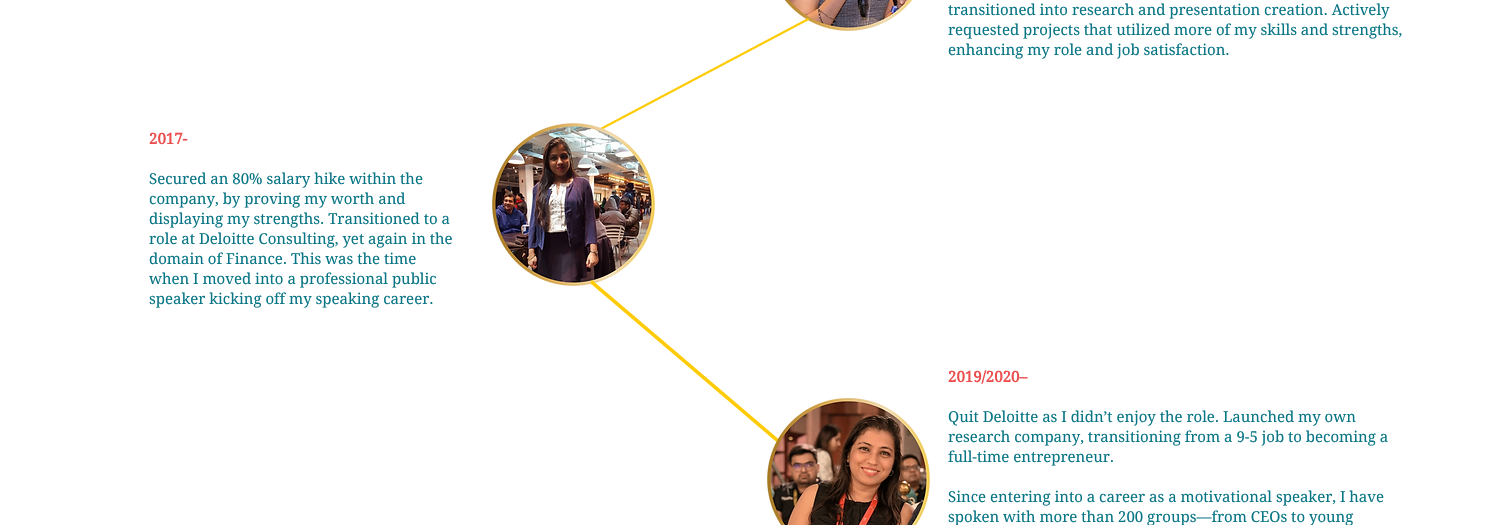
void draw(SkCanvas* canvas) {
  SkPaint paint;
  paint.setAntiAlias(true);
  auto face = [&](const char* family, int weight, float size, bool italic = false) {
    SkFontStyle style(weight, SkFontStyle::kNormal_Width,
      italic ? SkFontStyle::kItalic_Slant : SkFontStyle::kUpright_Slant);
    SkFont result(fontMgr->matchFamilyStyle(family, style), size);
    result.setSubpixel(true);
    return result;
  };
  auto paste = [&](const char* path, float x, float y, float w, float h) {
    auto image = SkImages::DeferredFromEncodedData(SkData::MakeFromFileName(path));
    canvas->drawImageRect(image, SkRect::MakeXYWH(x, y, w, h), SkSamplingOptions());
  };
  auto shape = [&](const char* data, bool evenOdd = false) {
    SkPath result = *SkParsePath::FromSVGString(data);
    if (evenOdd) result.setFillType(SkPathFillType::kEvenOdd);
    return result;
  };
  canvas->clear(0xffffffff);
  paste("img/1.png", 785, 0, 127, 31);
  paint.setColor(0xffffcb06);
  canvas->drawPath(shape("M587 135L808 18L809 20L588 137Z"), paint);
  paste("img/2.png", 492, 123, 163, 163);
  canvas->drawPath(shape("M592 280L782 442L780 445L590 283Z"), paint);
  paste("img/3.png", 767, 398, 163, 127);
  auto f0 = face("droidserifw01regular", 400, 15);
  paint.setColor(0xff087585);
  {
    const struct { const char* s; float x, y; } items[] = {
      {"transitioned into research and presentation creation. Actively", 948, 15},
      {"requested projects that utilized more of my skills and strengths,", 948, 35},
      {"enhancing my role and job satisfaction.", 948, 55},
    };
    for (auto [s, x, y] : items) {
      canvas->drawString(s, x, y, f0, paint);
    }
  }
  auto f1 = face("droidserifw01regular", 700, 15);
  paint.setColor(0xffec4d4d);
  canvas->drawString("2017-", 149, 144, f1, paint);
  paint.setColor(0xff087585);
  {
    const struct { const char* s; float x, y; } items[] = {
      {"Secured an 80% salary hike within the", 149, 184},
      {"company, by proving my worth and", 149, 204},
      {"displaying my strengths. Transitioned to a", 149, 224},
      {"role at Deloitte Consulting, yet again in the", 149, 244},
      {"domain of Finance. This was the time", 149, 264},
      {"when I moved into a professional public", 149, 284},
      {"speaker kicking off my speaking career.", 149, 304},
    };
    for (auto [s, x, y] : items) {
      canvas->drawString(s, x, y, f0, paint);
    }
  }
  paint.setColor(0xffec4d4d);
  canvas->drawString("2019/2020–", 948, 382, f1, paint);
  paint.setColor(0xff087585);
  {
    const struct { const char* s; float x, y; } items[] = {
      {"Quit Deloitte as I didn’t enjoy the role. Launched my own", 948, 422},
      {"research company, transitioning from a 9-5 job to becoming a", 948, 442},
      {"full-time entrepreneur.", 948, 462},
      {"Since entering into a career as a motivational speaker, I have", 948, 502},
      {"spoken with more than 200 groups—from CEOs to young", 948, 522},
    };
    for (auto [s, x, y] : items) {
      canvas->drawString(s, x, y, f0, paint);
    }
  }
}
